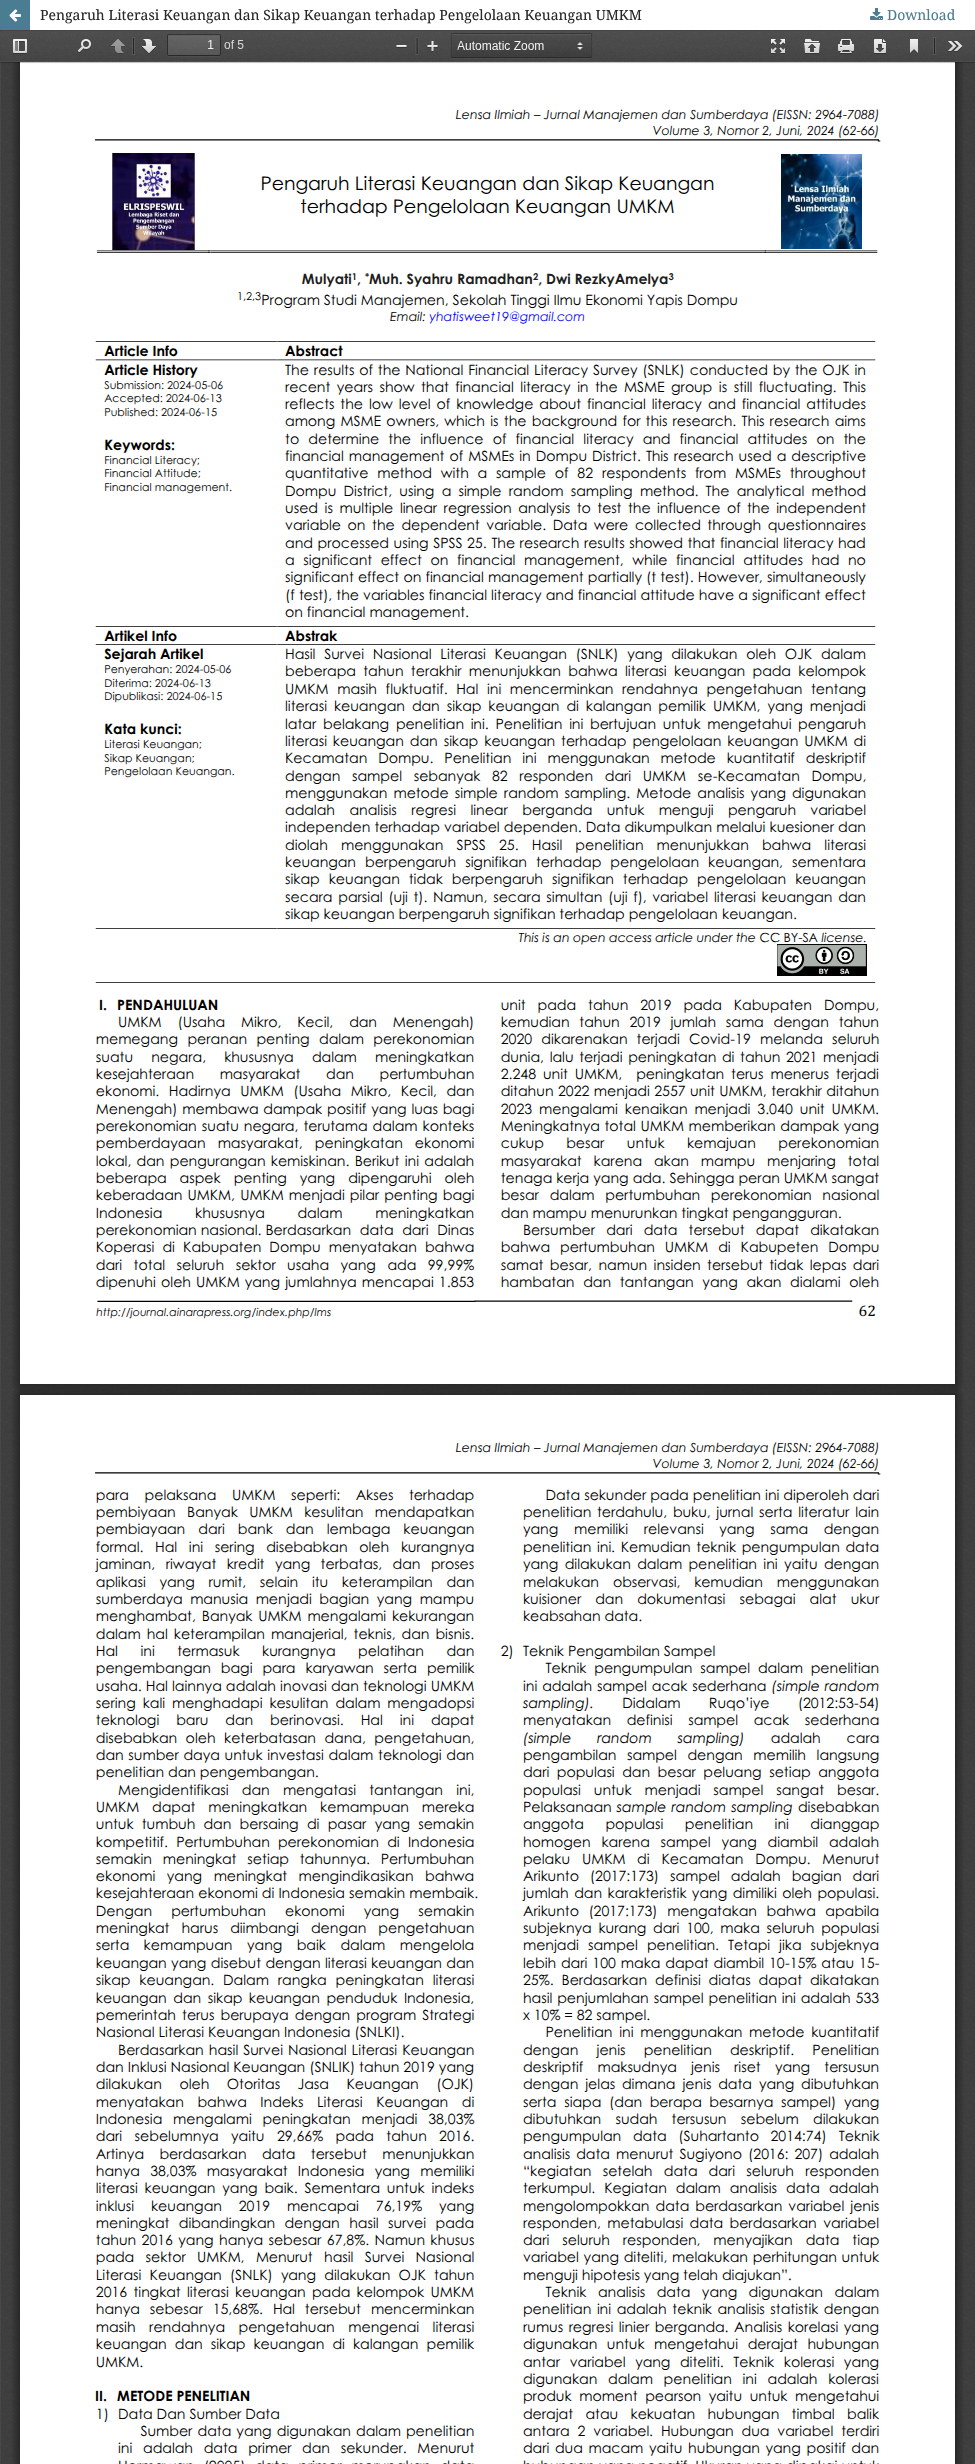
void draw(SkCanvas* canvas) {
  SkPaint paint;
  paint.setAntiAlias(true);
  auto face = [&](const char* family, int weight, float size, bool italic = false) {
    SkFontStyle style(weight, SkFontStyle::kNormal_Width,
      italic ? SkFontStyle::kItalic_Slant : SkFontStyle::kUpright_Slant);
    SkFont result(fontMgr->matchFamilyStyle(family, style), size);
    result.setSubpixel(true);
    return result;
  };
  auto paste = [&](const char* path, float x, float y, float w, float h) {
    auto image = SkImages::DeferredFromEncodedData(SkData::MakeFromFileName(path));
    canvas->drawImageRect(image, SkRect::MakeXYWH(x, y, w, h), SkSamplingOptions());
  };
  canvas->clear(0xffffffff);
  paint.setColor(0xff4b7d92);
  canvas->drawRect(SkRect::MakeXYWH(0, 0, 30, 30), paint);
  paste("img/1.png", 9, 9, 12, 13);
  paste("img/2.png", 870, 8, 13, 12);
  paste("img/3.png", 0, 30, 975, 2434);
  auto f0 = face("Noto Serif", 400, 14);
  paint.setColor(0xff292929);
  canvas->drawString("Pengaruh Literasi Keuangan dan Sikap Keuangan terhadap Pengelolaan Keuangan UMKM", 40, 20, f0, paint);
  paint.setColor(0xff4b7d92);
  canvas->drawString("Download", 887, 20, f0, paint);
}
